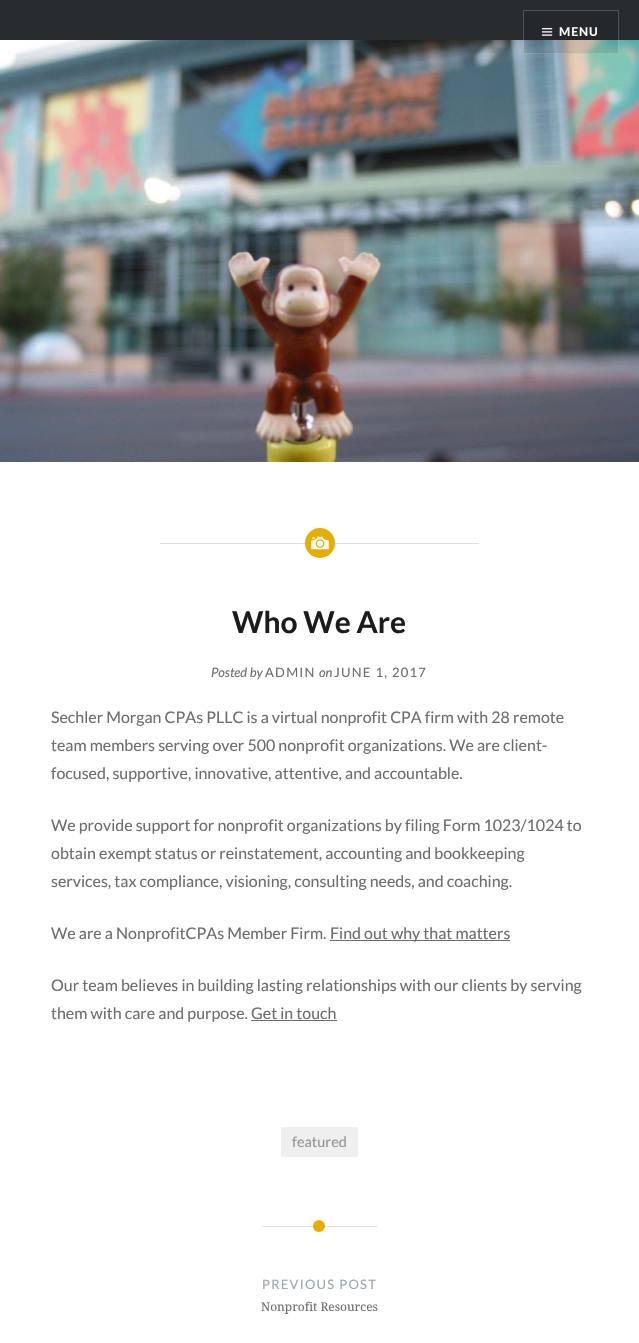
void draw(SkCanvas* canvas) {
  SkPaint paint;
  paint.setAntiAlias(true);
  auto face = [&](const char* family, int weight, float size, bool italic = false) {
    SkFontStyle style(weight, SkFontStyle::kNormal_Width,
      italic ? SkFontStyle::kItalic_Slant : SkFontStyle::kUpright_Slant);
    SkFont result(fontMgr->matchFamilyStyle(family, style), size);
    result.setSubpixel(true);
    return result;
  };
  auto writeSpaced = [&](const char* s, float x, float y, const SkFont& font, const SkPaint& ink, float letter, float word) {
    std::vector<SkGlyphID> glyphs(font.countText(s, strlen(s), SkTextEncoding::kUTF8));
    std::vector<float> xs(glyphs.size());
    font.textToGlyphs(s, strlen(s), SkTextEncoding::kUTF8, glyphs);
    font.getXPos(glyphs, xs, x);
    float extra = 0;
    for (size_t i = 0; i < glyphs.size(); i++) {
      xs[i] += extra;
      extra += letter + word * (glyphs[i] == font.unicharToGlyph(' '));
    }
    canvas->drawTextBlob(SkTextBlob::MakeFromPosHGlyphs(glyphs, xs, y, font), 0, 0, ink);
  };
  auto paste = [&](const char* path, float x, float y, float w, float h) {
    auto image = SkImages::DeferredFromEncodedData(SkData::MakeFromFileName(path));
    canvas->drawImageRect(image, SkRect::MakeXYWH(x, y, w, h), SkSamplingOptions());
  };
  canvas->clear(0xffffffff);
  paint.setColor(0xff292c2f);
  canvas->drawRect(SkRect::MakeXYWH(0, 0, 639, 40), paint);
  paste("img/2.png", 0, 40, 639, 422);
  paint.setColor(0x1a000000);
  canvas->drawRect(SkRect::MakeXYWH(523, 10, 96, 44), paint);
  paint.setStroke(true);
  paint.setStrokeWidth(1);
  paint.setColor(0x33ffffff);
  canvas->drawRect(SkRect::MakeXYWH(523.5f, 10.5f, 95, 43), paint);
  paste("img/1.png", 542, 28, 11, 8);
  paint.setStroke(false);
  paint.setColor(0xffe0e0e0);
  canvas->drawRect(SkRect::MakeXYWH(160, 543, 319, 1), paint);
  paint.setColor(0xffe7ae01);
  canvas->drawCircle(320, 543, 15, paint);
  paste("img/3.png", 311, 536, 18, 14);
  {
    const struct { float x, y, w, h; SkColor color; } items[] = {
      {330, 940, 180, 1, 0xff6a6c6e},
      {251, 1020, 86, 1, 0xff6a6c6e},
      {281, 1127, 77, 30, 0xffefefef},
      {262, 1226, 115, 1, 0xffe0e0e0},
    };
    for (auto [x, y, w, h, color] : items) {
      paint.setColor(color);
      canvas->drawRect(SkRect::MakeXYWH(x, y, w, h), paint);
    }
  }
  paint.setColor(0xffe7ae01);
  canvas->drawCircle(319, 1226, 6, paint);
  auto f0 = face("Lato", 700, 12);
  paint.setColor(0xffffffff);
  writeSpaced("MENU", 559, 36, f0, paint, 1, 0);
  auto f1 = face("Lato", 700, 30);
  paint.setColor(0xff1a1c1e);
  canvas->drawString("Who We Are", 232, 633, f1, paint);
  auto f2 = face("Lato", 400, 13, true);
  paint.setColor(0xff6a6c6e);
  canvas->drawString("Posted by", 211, 677, f2, paint);
  auto f3 = face("Lato", 400, 13);
  writeSpaced("ADMIN", 265, 677, f3, paint, 1.25f, 0);
  canvas->drawString("on", 319, 677, f2, paint);
  writeSpaced("JUNE 1, 2017", 334, 677, f3, paint, 1.25f, 0);
  auto f4 = face("Lato", 400, 16);
  {
    const struct { const char* s; float x, y; } items[] = {
      {"Sechler Morgan CPAs PLLC is a virtual nonprofit CPA firm with 28 remote", 51, 723},
      {"team members serving over 500 nonprofit organizations. We are client-", 51, 751},
      {"focused, supportive, innovative, attentive, and accountable.", 51, 779},
      {"We provide support for nonprofit organizations by filing Form 1023/1024 to", 51, 831},
      {"obtain exempt status or reinstatement, accounting and bookkeeping", 51, 859},
      {"services, tax compliance, visioning, consulting needs, and coaching.", 51, 887},
      {"We are a NonprofitCPAs Member Firm.", 51, 939},
      {"Find out why that matters", 330, 939},
      {"Our team believes in building lasting relationships with our clients by serving", 51, 991},
      {"them with care and purpose. Get in touch", 51, 1019},
    };
    for (auto [s, x, y] : items) {
      canvas->drawString(s, x, y, f4, paint);
    }
  }
  auto f5 = face("Lato", 400, 14.5f);
  paint.setColor(0xff949494);
  canvas->drawString("featured", 292, 1147, f5, paint);
  paint.setColor(0xff9da5ad);
  writeSpaced("PREVIOUS POST", 262, 1289, f3, paint, 1.25f, 0);
  auto f6 = face("Noto Serif", 400, 12);
  paint.setColor(0xff6a6c6e);
  canvas->drawString("Nonprofit Resources", 261, 1311, f6, paint);
}
